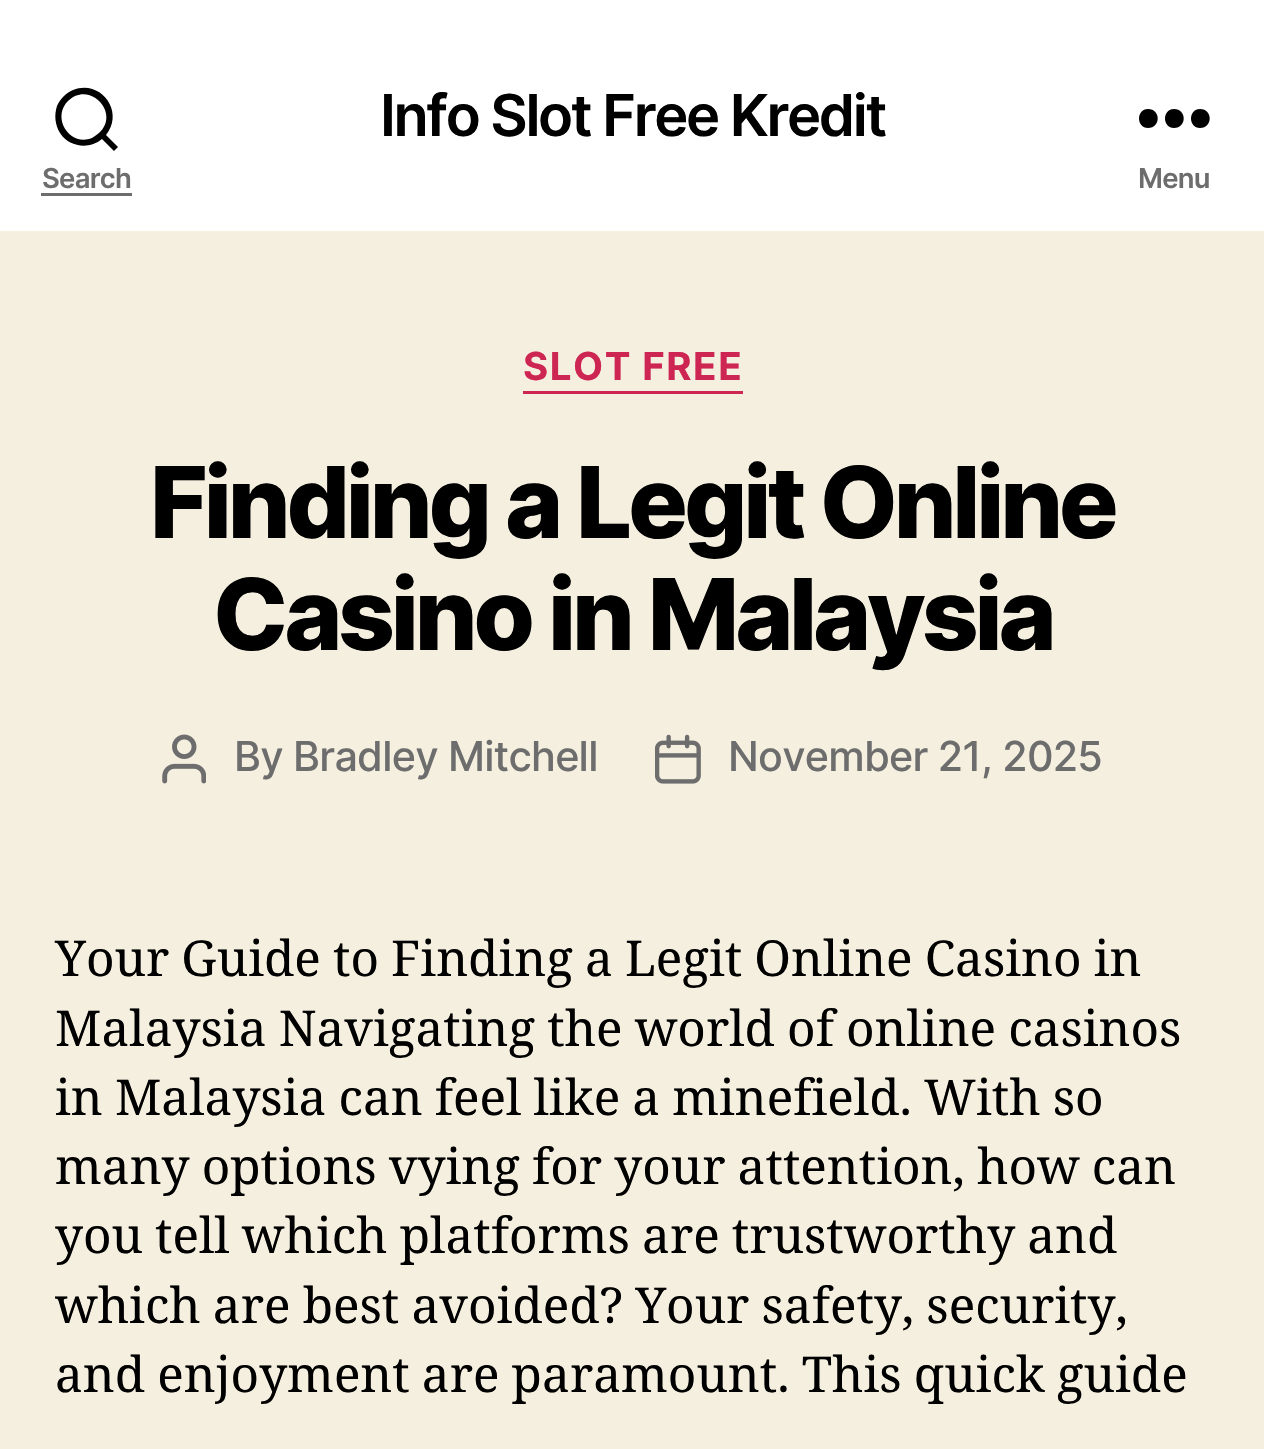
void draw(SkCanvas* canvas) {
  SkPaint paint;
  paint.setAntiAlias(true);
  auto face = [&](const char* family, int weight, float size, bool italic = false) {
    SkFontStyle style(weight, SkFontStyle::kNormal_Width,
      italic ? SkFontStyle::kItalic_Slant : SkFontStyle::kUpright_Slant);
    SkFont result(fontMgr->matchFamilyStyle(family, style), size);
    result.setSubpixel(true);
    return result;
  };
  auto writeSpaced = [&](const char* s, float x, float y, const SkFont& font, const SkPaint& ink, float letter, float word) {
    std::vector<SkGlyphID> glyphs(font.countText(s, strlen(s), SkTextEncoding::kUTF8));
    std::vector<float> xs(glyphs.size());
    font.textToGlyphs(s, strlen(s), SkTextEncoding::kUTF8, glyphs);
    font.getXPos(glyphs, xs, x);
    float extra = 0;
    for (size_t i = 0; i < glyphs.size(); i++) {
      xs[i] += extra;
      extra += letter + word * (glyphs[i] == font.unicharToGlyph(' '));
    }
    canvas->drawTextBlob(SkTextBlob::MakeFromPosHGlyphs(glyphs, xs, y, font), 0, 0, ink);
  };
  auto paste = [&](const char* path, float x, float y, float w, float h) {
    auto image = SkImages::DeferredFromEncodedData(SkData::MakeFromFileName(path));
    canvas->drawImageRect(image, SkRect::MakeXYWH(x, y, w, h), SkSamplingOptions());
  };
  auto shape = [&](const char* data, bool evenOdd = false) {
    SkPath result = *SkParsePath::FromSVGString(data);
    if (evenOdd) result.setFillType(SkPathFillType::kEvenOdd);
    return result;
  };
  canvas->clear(0xfff5efe0);
  paint.setColor(0xffffffff);
  canvas->drawRect(SkRect::MakeXYWH(0, 0, 1264, 231), paint);
  paint.setColor(0xff000000);
  canvas->drawPath(shape("M106 135L118 147L114 151L102 139C89 150 69 147 60 133C55 125 54 115 57 106C60 99 66 93 73 90C101 79 125 112 106 135ZM100 132C120 112 89 80 68 101C51 118 70 147 92 138C95 136 98 134 100 132Z"), paint);
  paint.setColor(0xff6d6d6d);
  canvas->drawRect(SkRect::MakeXYWH(41, 193, 91, 3), paint);
  paint.setColor(0xff000000);
  canvas->drawPath(shape("M1148 128C1136 128 1136 109 1148 109C1161 109 1161 128 1148 128ZM1174 128C1162 128 1162 109 1174 109C1187 109 1187 128 1174 128ZM1200 128C1188 128 1188 109 1200 109C1213 109 1213 128 1200 128Z", true), paint);
  paint.setColor(0xffcd2653);
  canvas->drawRect(SkRect::MakeXYWH(523, 391, 220, 3), paint);
  paste("img/1.png", 162, 734, 44, 50);
  paste("img/2.png", 655, 734, 46, 50);
  auto f0 = face("Inter", 600, 57.75f);
  paint.setColor(0xff000000);
  writeSpaced("Info Slot Free Kredit", 380, 136, f0, paint, -2.4f, 0);
  auto f1 = face("Inter", 600, 27.5f);
  paint.setColor(0xff6d6d6d);
  writeSpaced("Search", 42, 188, f1, paint, -0.75f, 0);
  writeSpaced("Menu", 1138, 188, f1, paint, -0.75f, 0);
  auto f2 = face("Inter", 700, 38.5f);
  paint.setColor(0xffcd2653);
  writeSpaced("SLOT FREE", 523, 380, f2, paint, 1.5f, 0);
  auto f3 = face("Inter", 800, 99);
  paint.setColor(0xff000000);
  writeSpaced("Finding a Legit Online", 150, 538, f3, paint, -4.1f, 0);
  writeSpaced("Casino in Malaysia", 213, 650, f3, paint, -4.1f, 0);
  auto f4 = face("Inter", 500, 41.25f);
  paint.setColor(0xff6d6d6d);
  writeSpaced("By Bradley Mitchell", 234, 771, f4, paint, -0.75f, 0);
  writeSpaced("November 21, 2025", 728, 771, f4, paint, -0.75f, 0);
  auto f5 = face("Noto Serif", 400, 49.5f);
  paint.setColor(0xff000000);
  {
    const struct { const char* s; float x, y; } items[] = {
      {"Your Guide to Finding a Legit Online Casino in", 55, 976},
      {"Malaysia Navigating the world of online casinos", 55, 1046},
      {"in Malaysia can feel like a minefield. With so", 55, 1115},
      {"many options vying for your attention, how can", 55, 1184},
      {"you tell which platforms are trustworthy and", 55, 1253},
      {"which are best avoided? Your safety, security,", 55, 1323},
      {"and enjoyment are paramount. This quick guide", 55, 1392},
    };
    for (auto [s, x, y] : items) {
      writeSpaced(s, x, y, f5, paint, 0, -0.75f);
    }
  }
}
